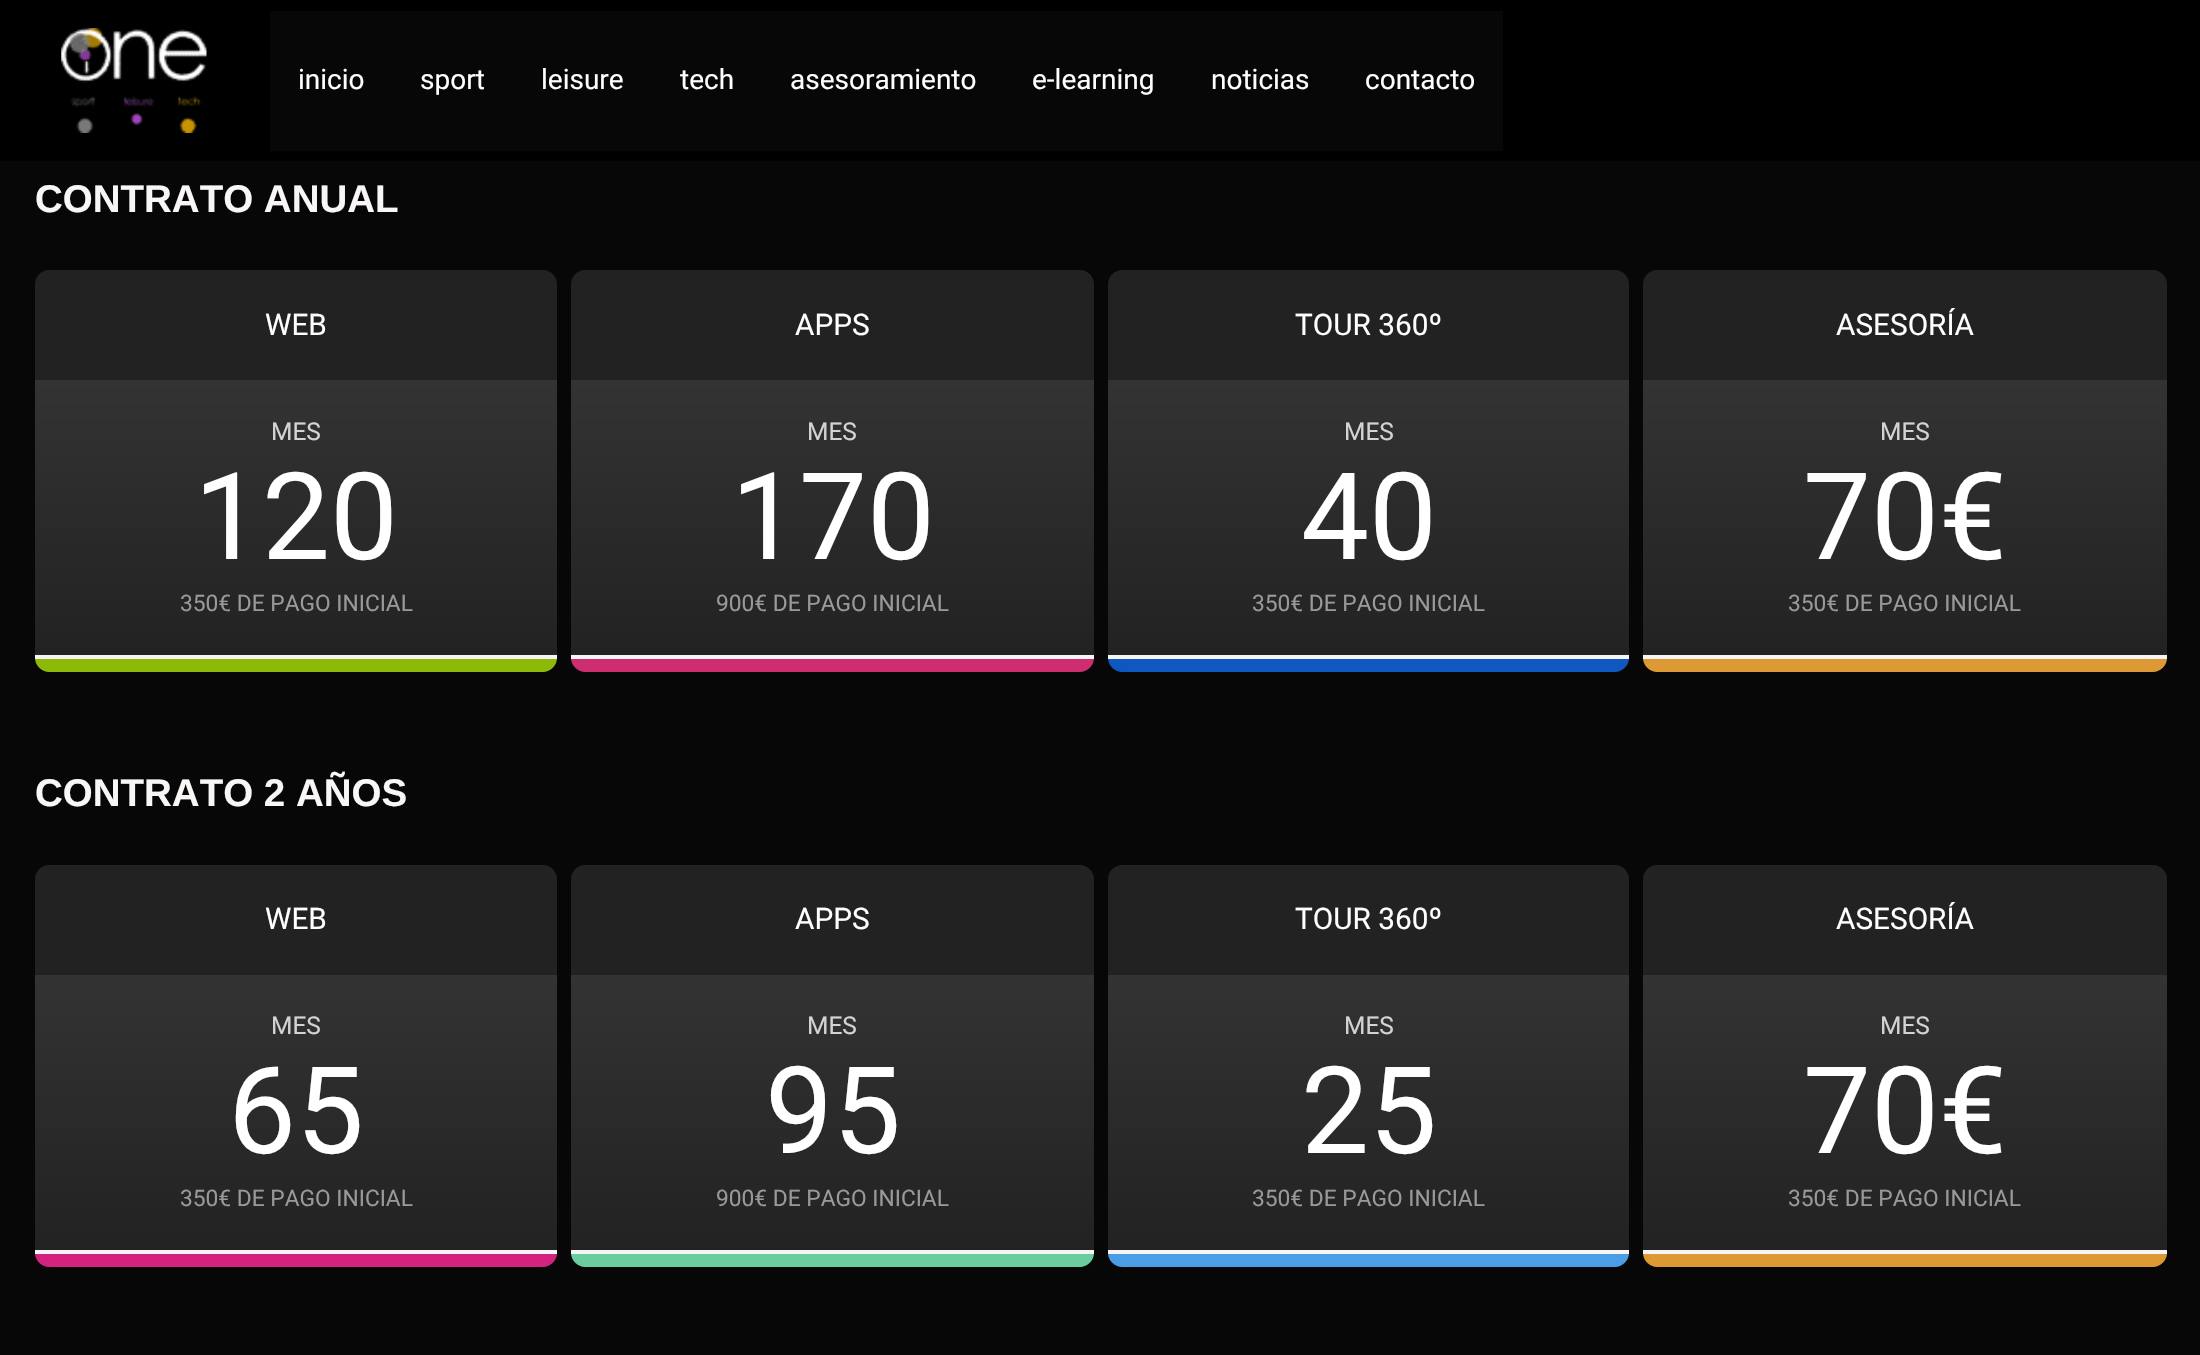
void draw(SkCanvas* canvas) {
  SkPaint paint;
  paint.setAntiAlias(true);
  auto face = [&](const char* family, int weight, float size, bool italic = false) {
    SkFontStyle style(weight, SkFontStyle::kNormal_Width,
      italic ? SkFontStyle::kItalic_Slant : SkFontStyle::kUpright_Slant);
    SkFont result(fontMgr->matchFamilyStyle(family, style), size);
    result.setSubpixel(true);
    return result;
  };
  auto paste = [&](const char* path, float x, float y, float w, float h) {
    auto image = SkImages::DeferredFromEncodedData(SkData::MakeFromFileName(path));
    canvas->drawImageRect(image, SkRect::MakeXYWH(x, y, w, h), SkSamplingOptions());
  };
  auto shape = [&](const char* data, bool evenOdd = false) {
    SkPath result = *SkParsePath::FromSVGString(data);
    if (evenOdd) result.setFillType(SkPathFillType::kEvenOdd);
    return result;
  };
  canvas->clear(0xff070707);
  paint.setColor(0xff000000);
  canvas->drawRect(SkRect::MakeXYWH(0, 0, 2200, 161), paint);
  paste("img/1.png", 61, 28, 146, 105);
  paint.setColor(0xff070707);
  canvas->drawRect(SkRect::MakeXYWH(270, 11, 1233, 140), paint);
  paint.setColor(0xff222222);
  canvas->drawPath(shape("M49 270H543C550.5 270 557 276.5 557 284V382H35V284C35 276.5 41.5 270 49 270Z"), paint);
  {
    const SkColor colors[] = {0xff222222, 0xff333333};
    const float stops[] = {0, 1};
    const SkPoint ends[] = {{296, 655}, {296, 380}};
    paint.setShader(SkGradientShader::MakeLinear(ends, colors, stops, 2, SkTileMode::kClamp));
    paint.setAlpha(255);
  }
  canvas->drawRect(SkRect::MakeXYWH(35, 380, 522, 275), paint);
  paint.setShader(nullptr);
  paint.setColor(0xff8dba09);
  canvas->drawPath(shape("M35 655H557V658C557 665.5 550.5 672 543 672H49C41.5 672 35 665.5 35 658Z"), paint);
  paint.setColor(0xfff5f5f5);
  canvas->drawRect(SkRect::MakeXYWH(35, 655, 522, 4), paint);
  paint.setColor(0xff222222);
  canvas->drawPath(shape("M585 270H1080C1087.5 270 1094 276.5 1094 284V382H571V284C571 276.5 577.5 270 585 270Z"), paint);
  {
    const SkColor colors[] = {0xff222222, 0xff333333};
    const float stops[] = {0, 1};
    const SkPoint ends[] = {{832, 655}, {832, 380}};
    paint.setShader(SkGradientShader::MakeLinear(ends, colors, stops, 2, SkTileMode::kClamp));
    paint.setAlpha(255);
  }
  canvas->drawRect(SkRect::MakeXYWH(571, 380, 523, 275), paint);
  paint.setShader(nullptr);
  paint.setColor(0xffce2d70);
  canvas->drawPath(shape("M571 655H1094V658C1094 665.5 1087.5 672 1080 672H585C577.5 672 571 665.5 571 658Z"), paint);
  paint.setColor(0xfff5f5f5);
  canvas->drawRect(SkRect::MakeXYWH(571, 655, 523, 4), paint);
  paint.setColor(0xff222222);
  canvas->drawPath(shape("M1122 270H1615C1622.5 270 1629 276.5 1629 284V382H1108V284C1108 276.5 1114.5 270 1122 270Z"), paint);
  {
    const SkColor colors[] = {0xff222222, 0xff333333};
    const float stops[] = {0, 1};
    const SkPoint ends[] = {{1369, 655}, {1369, 380}};
    paint.setShader(SkGradientShader::MakeLinear(ends, colors, stops, 2, SkTileMode::kClamp));
    paint.setAlpha(255);
  }
  canvas->drawRect(SkRect::MakeXYWH(1108, 380, 521, 275), paint);
  paint.setShader(nullptr);
  paint.setColor(0xff0f58bf);
  canvas->drawPath(shape("M1108 655H1629V658C1629 665.5 1622.5 672 1615 672H1122C1114.5 672 1108 665.5 1108 658Z"), paint);
  paint.setColor(0xfff5f5f5);
  canvas->drawRect(SkRect::MakeXYWH(1108, 655, 521, 4), paint);
  paint.setColor(0xff222222);
  canvas->drawPath(shape("M1657 270H2153C2160.5 270 2167 276.5 2167 284V382H1643V284C1643 276.5 1649.5 270 1657 270Z"), paint);
  {
    const SkColor colors[] = {0xff222222, 0xff333333};
    const float stops[] = {0, 1};
    const SkPoint ends[] = {{1905, 655}, {1905, 380}};
    paint.setShader(SkGradientShader::MakeLinear(ends, colors, stops, 2, SkTileMode::kClamp));
    paint.setAlpha(255);
  }
  canvas->drawRect(SkRect::MakeXYWH(1643, 380, 524, 275), paint);
  paint.setShader(nullptr);
  paint.setColor(0xffdd9933);
  canvas->drawPath(shape("M1643 655H2167V658C2167 665.5 2160.5 672 2153 672H1657C1649.5 672 1643 665.5 1643 658Z"), paint);
  paint.setColor(0xfff5f5f5);
  canvas->drawRect(SkRect::MakeXYWH(1643, 655, 524, 4), paint);
  paint.setColor(0xff222222);
  canvas->drawPath(shape("M49 865H543C550.5 865 557 871.5 557 879V977H35V879C35 871.5 41.5 865 49 865Z"), paint);
  {
    const SkColor colors[] = {0xff222222, 0xff333333};
    const float stops[] = {0, 1};
    const SkPoint ends[] = {{296, 1250}, {296, 975}};
    paint.setShader(SkGradientShader::MakeLinear(ends, colors, stops, 2, SkTileMode::kClamp));
    paint.setAlpha(255);
  }
  canvas->drawRect(SkRect::MakeXYWH(35, 975, 522, 275), paint);
  paint.setShader(nullptr);
  paint.setColor(0xffd6227f);
  canvas->drawPath(shape("M35 1250H557V1253C557 1260.5 550.5 1267 543 1267H49C41.5 1267 35 1260.5 35 1253Z"), paint);
  paint.setColor(0xfff5f5f5);
  canvas->drawRect(SkRect::MakeXYWH(35, 1250, 522, 4), paint);
  paint.setColor(0xff222222);
  canvas->drawPath(shape("M585 865H1080C1087.5 865 1094 871.5 1094 879V977H571V879C571 871.5 577.5 865 585 865Z"), paint);
  {
    const SkColor colors[] = {0xff222222, 0xff333333};
    const float stops[] = {0, 1};
    const SkPoint ends[] = {{832, 1250}, {832, 975}};
    paint.setShader(SkGradientShader::MakeLinear(ends, colors, stops, 2, SkTileMode::kClamp));
    paint.setAlpha(255);
  }
  canvas->drawRect(SkRect::MakeXYWH(571, 975, 523, 275), paint);
  paint.setShader(nullptr);
  paint.setColor(0xff6acca1);
  canvas->drawPath(shape("M571 1250H1094V1253C1094 1260.5 1087.5 1267 1080 1267H585C577.5 1267 571 1260.5 571 1253Z"), paint);
  paint.setColor(0xfff5f5f5);
  canvas->drawRect(SkRect::MakeXYWH(571, 1250, 523, 4), paint);
  paint.setColor(0xff222222);
  canvas->drawPath(shape("M1122 865H1615C1622.5 865 1629 871.5 1629 879V977H1108V879C1108 871.5 1114.5 865 1122 865Z"), paint);
  {
    const SkColor colors[] = {0xff222222, 0xff333333};
    const float stops[] = {0, 1};
    const SkPoint ends[] = {{1369, 1250}, {1369, 975}};
    paint.setShader(SkGradientShader::MakeLinear(ends, colors, stops, 2, SkTileMode::kClamp));
    paint.setAlpha(255);
  }
  canvas->drawRect(SkRect::MakeXYWH(1108, 975, 521, 275), paint);
  paint.setShader(nullptr);
  paint.setColor(0xff4b9de5);
  canvas->drawPath(shape("M1108 1250H1629V1253C1629 1260.5 1622.5 1267 1615 1267H1122C1114.5 1267 1108 1260.5 1108 1253Z"), paint);
  paint.setColor(0xfff5f5f5);
  canvas->drawRect(SkRect::MakeXYWH(1108, 1250, 521, 4), paint);
  paint.setColor(0xff222222);
  canvas->drawPath(shape("M1657 865H2153C2160.5 865 2167 871.5 2167 879V977H1643V879C1643 871.5 1649.5 865 1657 865Z"), paint);
  {
    const SkColor colors[] = {0xff222222, 0xff333333};
    const float stops[] = {0, 1};
    const SkPoint ends[] = {{1905, 1250}, {1905, 975}};
    paint.setShader(SkGradientShader::MakeLinear(ends, colors, stops, 2, SkTileMode::kClamp));
    paint.setAlpha(255);
  }
  canvas->drawRect(SkRect::MakeXYWH(1643, 975, 524, 275), paint);
  paint.setShader(nullptr);
  paint.setColor(0xffdd9933);
  canvas->drawPath(shape("M1643 1250H2167V1253C2167 1260.5 2160.5 1267 2153 1267H1657C1649.5 1267 1643 1260.5 1643 1253Z"), paint);
  paint.setColor(0xfff5f5f5);
  canvas->drawRect(SkRect::MakeXYWH(1643, 1250, 524, 4), paint);
  auto f0 = face("Roboto", 400, 28);
  paint.setColor(0xffffffff);
  {
    const struct { const char* s; float x, y; } items[] = {
      {"inicio", 298, 89},
      {"sport", 420, 89},
      {"leisure", 541, 89},
      {"tech", 680, 89},
      {"asesoramiento", 790, 89},
      {"e-learning", 1032, 89},
      {"noticias", 1211, 89},
      {"contacto", 1365, 89},
    };
    for (auto [s, x, y] : items) {
      canvas->drawString(s, x, y, f0, paint);
    }
  }
  auto f1 = face("Liberation Sans", 700, 38.5f);
  paint.setColor(0xfff9f6f6);
  canvas->drawString("CONTRATO ANUAL", 35, 212, f1, paint);
  auto f2 = face("Roboto", 400, 29.75f);
  paint.setColor(0xffffffff);
  canvas->drawString("WEB", 265, 335, f2, paint);
  auto f3 = face("Roboto", 400, 24.5f);
  paint.setColor(0xffd3d3d3);
  canvas->drawString("MES", 271, 440, f3, paint);
  auto f4 = face("Roboto", 400, 121);
  paint.setColor(0xffffffff);
  canvas->drawString("120", 194, 559, f4, paint);
  auto f5 = face("Roboto", 400, 22.75f);
  paint.setColor(0xff999999);
  canvas->drawString("350€ DE PAGO INICIAL", 180, 611, f5, paint);
  paint.setColor(0xffffffff);
  canvas->drawString("APPS", 795, 335, f2, paint);
  paint.setColor(0xffd3d3d3);
  canvas->drawString("MES", 807, 440, f3, paint);
  paint.setColor(0xffffffff);
  canvas->drawString("170", 731, 559, f4, paint);
  paint.setColor(0xff999999);
  canvas->drawString("900€ DE PAGO INICIAL", 716, 611, f5, paint);
  paint.setColor(0xffffffff);
  canvas->drawString("TOUR 360º", 1295, 335, f2, paint);
  paint.setColor(0xffd3d3d3);
  canvas->drawString("MES", 1344, 440, f3, paint);
  paint.setColor(0xffffffff);
  canvas->drawString("40", 1301, 559, f4, paint);
  paint.setColor(0xff999999);
  canvas->drawString("350€ DE PAGO INICIAL", 1252, 611, f5, paint);
  paint.setColor(0xffffffff);
  canvas->drawString("ASESORÍA", 1836, 335, f2, paint);
  paint.setColor(0xffd3d3d3);
  canvas->drawString("MES", 1880, 440, f3, paint);
  paint.setColor(0xffffffff);
  canvas->drawString("70€", 1803, 559, f4, paint);
  paint.setColor(0xff999999);
  canvas->drawString("350€ DE PAGO INICIAL", 1788, 611, f5, paint);
  paint.setColor(0xfff9f6f6);
  canvas->drawString("CONTRATO 2 AÑOS", 35, 806, f1, paint);
  paint.setColor(0xffffffff);
  canvas->drawString("WEB", 265, 929, f2, paint);
  paint.setColor(0xffd3d3d3);
  canvas->drawString("MES", 271, 1034, f3, paint);
  paint.setColor(0xffffffff);
  canvas->drawString("65", 228, 1153, f4, paint);
  paint.setColor(0xff999999);
  canvas->drawString("350€ DE PAGO INICIAL", 180, 1206, f5, paint);
  paint.setColor(0xffffffff);
  canvas->drawString("APPS", 795, 929, f2, paint);
  paint.setColor(0xffd3d3d3);
  canvas->drawString("MES", 807, 1034, f3, paint);
  paint.setColor(0xffffffff);
  canvas->drawString("95", 765, 1153, f4, paint);
  paint.setColor(0xff999999);
  canvas->drawString("900€ DE PAGO INICIAL", 716, 1206, f5, paint);
  paint.setColor(0xffffffff);
  canvas->drawString("TOUR 360º", 1295, 929, f2, paint);
  paint.setColor(0xffd3d3d3);
  canvas->drawString("MES", 1344, 1034, f3, paint);
  paint.setColor(0xffffffff);
  canvas->drawString("25", 1301, 1153, f4, paint);
  paint.setColor(0xff999999);
  canvas->drawString("350€ DE PAGO INICIAL", 1252, 1206, f5, paint);
  paint.setColor(0xffffffff);
  canvas->drawString("ASESORÍA", 1836, 929, f2, paint);
  paint.setColor(0xffd3d3d3);
  canvas->drawString("MES", 1880, 1034, f3, paint);
  paint.setColor(0xffffffff);
  canvas->drawString("70€", 1803, 1153, f4, paint);
  paint.setColor(0xff999999);
  canvas->drawString("350€ DE PAGO INICIAL", 1788, 1206, f5, paint);
}
